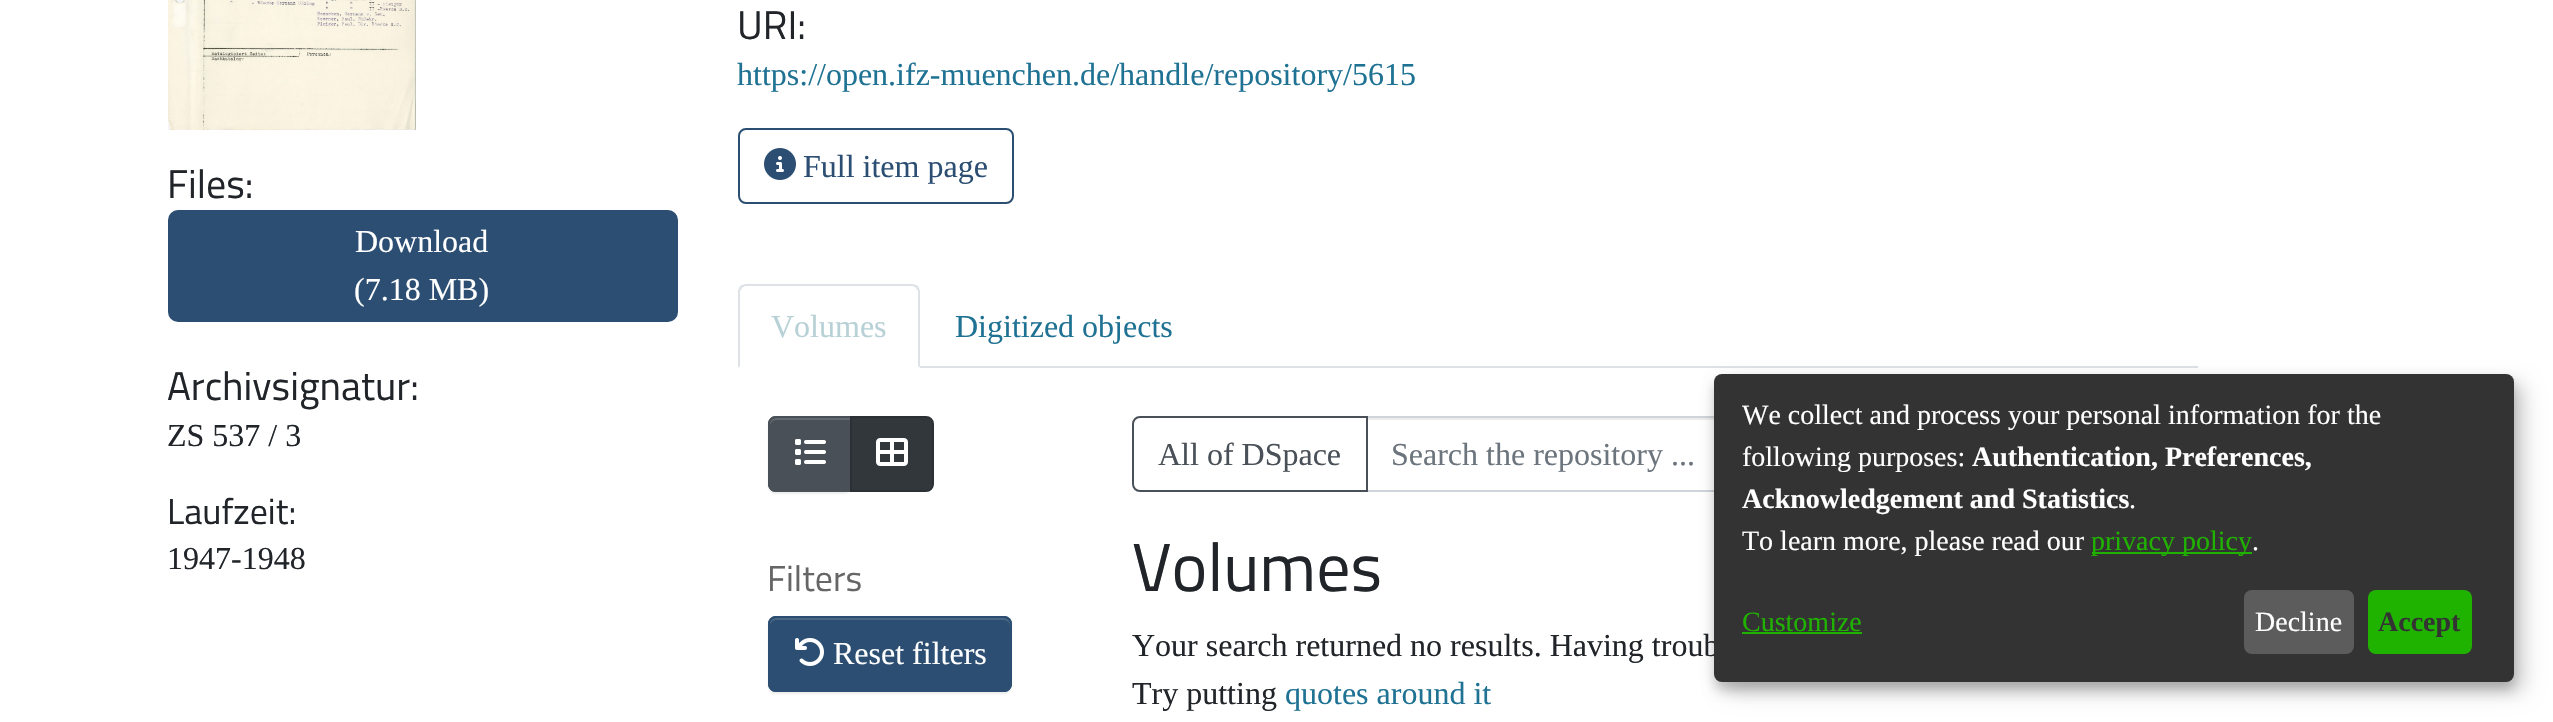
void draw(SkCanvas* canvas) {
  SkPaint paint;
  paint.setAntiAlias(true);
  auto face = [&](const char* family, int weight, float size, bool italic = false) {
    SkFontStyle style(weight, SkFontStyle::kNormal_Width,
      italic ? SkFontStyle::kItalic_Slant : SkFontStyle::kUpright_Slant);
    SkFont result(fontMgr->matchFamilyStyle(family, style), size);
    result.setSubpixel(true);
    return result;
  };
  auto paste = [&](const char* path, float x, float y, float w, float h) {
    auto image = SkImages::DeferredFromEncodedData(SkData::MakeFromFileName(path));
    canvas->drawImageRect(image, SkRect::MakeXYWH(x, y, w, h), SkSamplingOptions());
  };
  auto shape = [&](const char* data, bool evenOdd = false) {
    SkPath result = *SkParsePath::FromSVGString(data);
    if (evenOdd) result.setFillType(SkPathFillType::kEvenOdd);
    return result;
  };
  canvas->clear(0xffffffff);
  paste("img/1.png", 168, 0, 248, 130);
  paint.setColor(0xff2b4e72);
  canvas->drawRoundRect(SkRect::MakeXYWH(170, 212, 506, 108), 8, 8, paint);
  paint.setStroke(true);
  paint.setStrokeWidth(4);
  canvas->drawRoundRect(SkRect::MakeXYWH(170, 212, 506, 108), 8, 8, paint);
  paint.setStrokeWidth(2);
  canvas->drawRoundRect(SkRect::MakeXYWH(739, 129, 274, 74), 7, 7, paint);
  paste("img/2.png", 764, 148, 32, 32);
  paint.setStroke(false);
  paint.setColor(0xffdee2e6);
  canvas->drawRect(SkRect::MakeXYWH(920, 366, 1278, 2), paint);
  canvas->drawPath(shape("M746 284C744 284 742 285 740 286L742 288C743 287 744 286 746 286H912C914 286 915 287 916 288L918 286C916 285 914 284 912 284Z"), paint);
  canvas->drawPath(shape("M920 368V292C920 290 919 288 918 286L916 288L918 291V366Z"), paint);
  paint.setColor(0xffffffff);
  canvas->drawPath(shape("M920 368L918 366H740L738 368Z"), paint);
  paint.setColor(0xffdee2e6);
  canvas->drawPath(shape("M738 368L740 366V291L742 288L740 286C739 288 738 290 738 292Z"), paint);
  paint.setColor(0x12000000);
  paint.setMaskFilter(SkMaskFilter::MakeBlur(kNormal_SkBlurStyle, 1));
  canvas->drawRoundRect(SkRect::MakeXYWH(768, 418, 84, 76), 8, 8, paint);
  paint.setMaskFilter(nullptr);
  paint.setColor(0xff495057);
  canvas->drawPath(shape("M776 416H852V492H776C771.5 492 768 488.5 768 484V424C768 419.5 771.5 416 776 416Z"), paint);
  paint.setColor(0xff646a70);
  canvas->drawPath(shape("M776 420H850V418H776C773 418 770 421 770 424V426C770 423 773 420 776 420Z"), paint);
  paint.setStroke(true);
  paint.setColor(0xff495057);
  canvas->drawPath(shape("M776 417H851V491H776C772 491 769 488 769 484V424C769 420 772 417 776 417Z"), paint);
  paste("img/3.png", 795, 439, 31, 26);
  paint.setStroke(false);
  paint.setColor(0xff32373b);
  canvas->drawPath(shape("M851 417H926C930 417 933 420 933 424V484C933 488 930 491 926 491H851Z"), paint);
  paint.setStroke(true);
  paint.setColor(0xff2c3034);
  canvas->drawPath(shape("M851 417H926C930 417 933 420 933 424V484C933 488 930 491 926 491H851Z"), paint);
  paste("img/4.png", 876, 438, 32, 28);
  paint.setStroke(false);
  paint.setColor(0x12000000);
  paint.setMaskFilter(SkMaskFilter::MakeBlur(kNormal_SkBlurStyle, 1));
  canvas->drawRoundRect(SkRect::MakeXYWH(768, 618, 244, 76), 8, 8, paint);
  paint.setMaskFilter(nullptr);
  paint.setColor(0xff2b4e72);
  canvas->drawRoundRect(SkRect::MakeXYWH(768, 616, 244, 76), 8, 8, paint);
  paint.setColor(0xff4b6987);
  canvas->drawPath(shape("M776 620H1004C1007 620 1010 623 1010 626V624C1010 621 1007 618 1004 618H776C773 618 770 621 770 624V626C770 623 773 620 776 620Z"), paint);
  paint.setStroke(true);
  paint.setColor(0xff2b4e72);
  canvas->drawRoundRect(SkRect::MakeXYWH(769, 617, 242, 74), 7, 7, paint);
  paste("img/5.png", 795, 638, 29, 28);
  paint.setStroke(false);
  paint.setColor(0xffececec);
  canvas->drawRect(SkRect::MakeXYWH(1368, 418, 346, 2), paint);
  paint.setStroke(true);
  paint.setColor(0xffced4da);
  canvas->drawRect(SkRect::MakeXYWH(1367, 417, 622, 74), paint);
  paint.setColor(0xff495057);
  canvas->drawPath(shape("M1140 417H1367V491H1140C1136 491 1133 488 1133 484V424C1133 420 1136 417 1140 417Z"), paint);
  paint.setStroke(false);
  paint.setColor(0x30000000);
  paint.setMaskFilter(SkMaskFilter::MakeBlur(kNormal_SkBlurStyle, 10));
  canvas->drawRoundRect(SkRect::MakeXYWH(1724, 384, 800, 308), 8, 8, paint);
  paint.setMaskFilter(nullptr);
  paint.setColor(0x33000000);
  paint.setMaskFilter(SkMaskFilter::MakeBlur(kNormal_SkBlurStyle, 6));
  canvas->drawRoundRect(SkRect::MakeXYWH(1714, 382, 800, 308), 8, 8, paint);
  paint.setMaskFilter(nullptr);
  auto f0 = face("Titillium Web", 400, 40);
  paint.setColor(0xff212529);
  canvas->drawString("Files:", 167, 198, f0, paint);
  auto f1 = face("Liberation Serif", 400, 32);
  paint.setColor(0xffffffff);
  canvas->drawString("Download", 355, 252, f1, paint);
  canvas->drawString("(7.18 MB)", 354, 300, f1, paint);
  paint.setColor(0xff212529);
  canvas->drawString("Archivsignatur:", 167, 400, f0, paint);
  canvas->drawString("ZS 537 / 3", 167, 446, f1, paint);
  auto f2 = face("Titillium Web", 400, 36);
  canvas->drawString("Laufzeit:", 167, 524, f2, paint);
  canvas->drawString("1947-1948", 167, 569, f1, paint);
  canvas->drawString("URI:", 737, 39, f0, paint);
  paint.setColor(0xff1f7293);
  canvas->drawString("https://open.ifz-muenchen.de/handle/repository/5615", 737, 85, f1, paint);
  paint.setColor(0xff2b4e72);
  canvas->drawString("Full item page", 803, 177, f1, paint);
  paint.setColor(0xffb8d1d6);
  canvas->drawString("Volumes", 771, 337, f1, paint);
  paint.setColor(0xff1f7293);
  canvas->drawString("Digitized objects", 955, 337, f1, paint);
  paint.setColor(0xff666666);
  canvas->drawString("Filters", 767, 591, f2, paint);
  paint.setColor(0xffffffff);
  canvas->drawString("Reset filters", 833, 664, f1, paint);
  paint.setColor(0xff495057);
  canvas->drawString("All of DSpace", 1158, 465, f1, paint);
  paint.setColor(0xff6c757d);
  canvas->drawString("Search the repository ...", 1391, 465, f1, paint);
  auto f3 = face("Titillium Web", 400, 68);
  paint.setColor(0xff212529);
  canvas->drawString("Volumes", 1132, 591, f3, paint);
  canvas->drawString("Your search returned no results. Having troub", 1132, 656, f1, paint);
  canvas->drawString("Try putting", 1132, 704, f1, paint);
  paint.setColor(0xff1f7293);
  canvas->drawString("quotes around it", 1285, 704, f1, paint);
  paint.setColor(0xff333333);
  canvas->drawRoundRect(SkRect::MakeXYWH(1714, 374, 800, 308), 8, 8, paint);
  auto f4 = face("Liberation Serif", 400, 28);
  paint.setColor(0xffffffff);
  canvas->drawString("We collect and process your personal information for the", 1742, 424, f4, paint);
  canvas->drawString("following purposes:", 1742, 466, f4, paint);
  auto f5 = face("Liberation Serif", 700, 28);
  canvas->drawString("Authentication, Preferences,", 1972, 466, f5, paint);
  canvas->drawString("Acknowledgement and Statistics", 1742, 508, f5, paint);
  {
    const struct { const char* s; float x, y; } items[] = {
      {".", 2129, 508},
      {"To learn more, please read our", 1742, 550},
      {".", 2252, 550},
    };
    for (auto [s, x, y] : items) {
      canvas->drawString(s, x, y, f4, paint);
    }
  }
  paint.setColor(0xff1fb300);
  canvas->drawRect(SkRect::MakeXYWH(2092, 552, 160, 2), paint);
  canvas->drawString("privacy policy", 2091, 550, f4, paint);
  canvas->drawString("Customize", 1742, 631, f4, paint);
  canvas->drawRect(SkRect::MakeXYWH(1742, 632, 120, 2), paint);
  paint.setColor(0xff5c5c5c);
  canvas->drawRoundRect(SkRect::MakeXYWH(2244, 590, 110, 64), 8, 8, paint);
  paint.setColor(0xffffffff);
  canvas->drawString("Decline", 2255, 631, f4, paint);
  paint.setColor(0xff1fb300);
  canvas->drawRoundRect(SkRect::MakeXYWH(2368, 590, 104, 64), 8, 8, paint);
  paint.setColor(0xff333333);
  canvas->drawString("Accept", 2378, 631, f5, paint);
}
